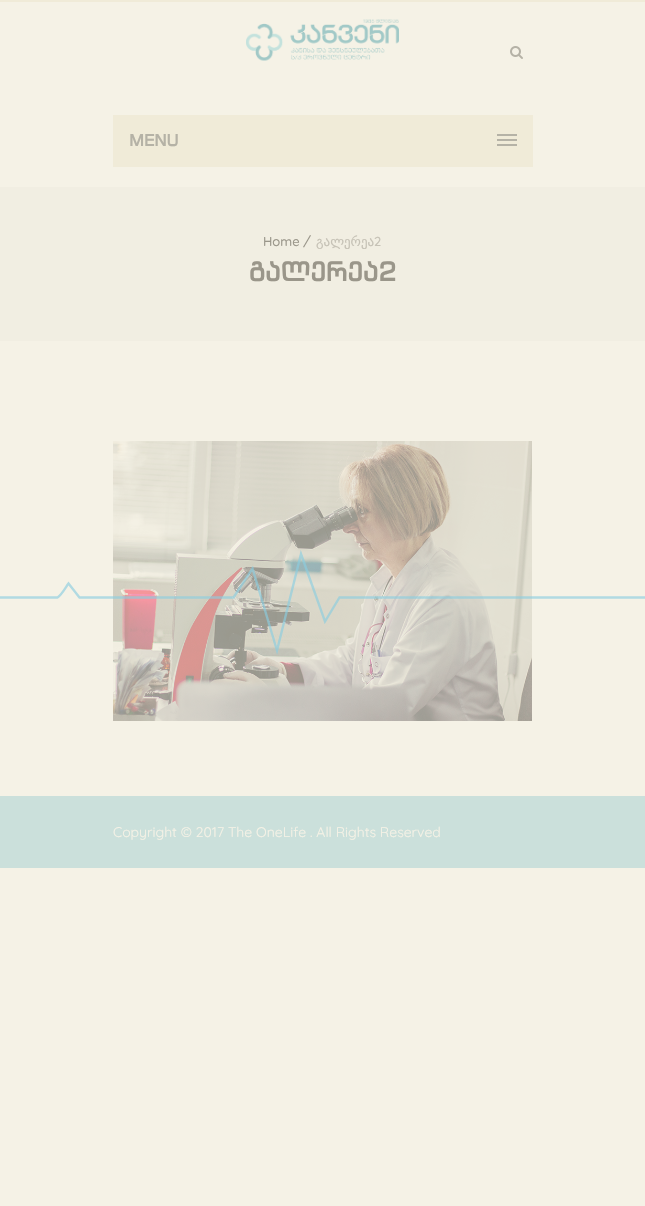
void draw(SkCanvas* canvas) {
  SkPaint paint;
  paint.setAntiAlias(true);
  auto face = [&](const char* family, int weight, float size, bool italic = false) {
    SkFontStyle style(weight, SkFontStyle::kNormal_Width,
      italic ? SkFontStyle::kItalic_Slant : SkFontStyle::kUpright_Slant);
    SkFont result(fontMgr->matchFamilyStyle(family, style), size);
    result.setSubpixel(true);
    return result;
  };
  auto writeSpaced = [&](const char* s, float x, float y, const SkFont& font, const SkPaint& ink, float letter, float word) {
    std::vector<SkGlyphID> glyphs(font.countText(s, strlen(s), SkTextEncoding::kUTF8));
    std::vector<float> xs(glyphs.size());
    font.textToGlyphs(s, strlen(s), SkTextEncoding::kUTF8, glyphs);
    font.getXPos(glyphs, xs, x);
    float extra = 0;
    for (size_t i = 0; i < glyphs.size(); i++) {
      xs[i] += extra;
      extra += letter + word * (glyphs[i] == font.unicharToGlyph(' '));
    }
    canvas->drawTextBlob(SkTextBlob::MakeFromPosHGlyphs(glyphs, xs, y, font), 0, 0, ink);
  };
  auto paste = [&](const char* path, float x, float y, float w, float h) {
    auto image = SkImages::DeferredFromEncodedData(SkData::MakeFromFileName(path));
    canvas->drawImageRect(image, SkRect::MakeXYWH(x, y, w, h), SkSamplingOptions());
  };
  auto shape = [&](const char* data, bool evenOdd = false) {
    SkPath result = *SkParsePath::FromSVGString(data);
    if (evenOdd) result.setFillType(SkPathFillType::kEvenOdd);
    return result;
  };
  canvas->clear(0xfff5f2e6);
  paint.setColor(0xfff0ebd8);
  canvas->drawRect(SkRect::MakeXYWH(0, 0, 645, 2), paint);
  paste("img/1.png", 246, 19, 153, 42);
  paste("img/2.png", 510, 46, 13, 13);
  {
    const struct { float x, y, w, h; SkColor color; } items[] = {
      {113, 115, 420, 52, 0xfff0ebd8},
      {497, 139, 20, 2, 0xffb5b2a6},
      {497, 134, 20, 2, 0xffb5b2a6},
      {497, 144, 20, 2, 0xffb5b2a6},
      {0, 187, 645, 154, 0xfff1eee2},
    };
    for (auto [x, y, w, h, color] : items) {
      paint.setColor(color);
      canvas->drawRect(SkRect::MakeXYWH(x, y, w, h), paint);
    }
  }
  paint.setColor(0xff9a968a);
  canvas->drawPath(shape("M310 235L311 235.5L304 247.5L303 247Z"), paint);
  paste("img/3.png", 113, 441, 419, 280);
  paint.setColor(0xffcbe0db);
  canvas->drawRect(SkRect::MakeXYWH(0, 796, 645, 72), paint);
  paint.setStroke(true);
  paint.setStrokeWidth(2.4f);
  paint.setStrokeCap(SkPaint::kSquare_Cap);
  paint.setColor(0xa389cddf);
  canvas->drawPath(shape("M-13.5 597.5H57.5C61.5 595 65.5 587.5 68.5 583.5L79.5 597.5H233.5L252.5 568.5L277 650.5L301 554L325 621.5L339.5 597.5H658.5"), paint);
  auto f0 = face("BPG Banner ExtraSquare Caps", 700, 16);
  paint.setStroke(false);
  paint.setColor(0xffb5b2a6);
  canvas->drawString("MENU", 129, 146, f0, paint);
  auto f1 = face("Quicksand", 500, 13);
  paint.setColor(0xff9a968a);
  canvas->drawString("Home", 263, 246, f1, paint);
  auto f2 = face("DejaVu Sans", 400, 13);
  paint.setColor(0xffc6c2b6);
  canvas->drawString("გალერეა", 316, 246, f2, paint);
  canvas->drawString("2", 374, 246, f1, paint);
  auto f3 = face("BPG Banner ExtraSquare Caps", 700, 26);
  paint.setColor(0xff9a968a);
  writeSpaced("გალერეა2", 249, 281, f3, paint, 0.5f, 0);
  auto f4 = face("Quicksand", 400, 14);
  paint.setColor(0xfff5f2e6);
  canvas->drawString("Copyright © 2017 The OneLife . All Rights Reserved", 113, 837, f4, paint);
}
